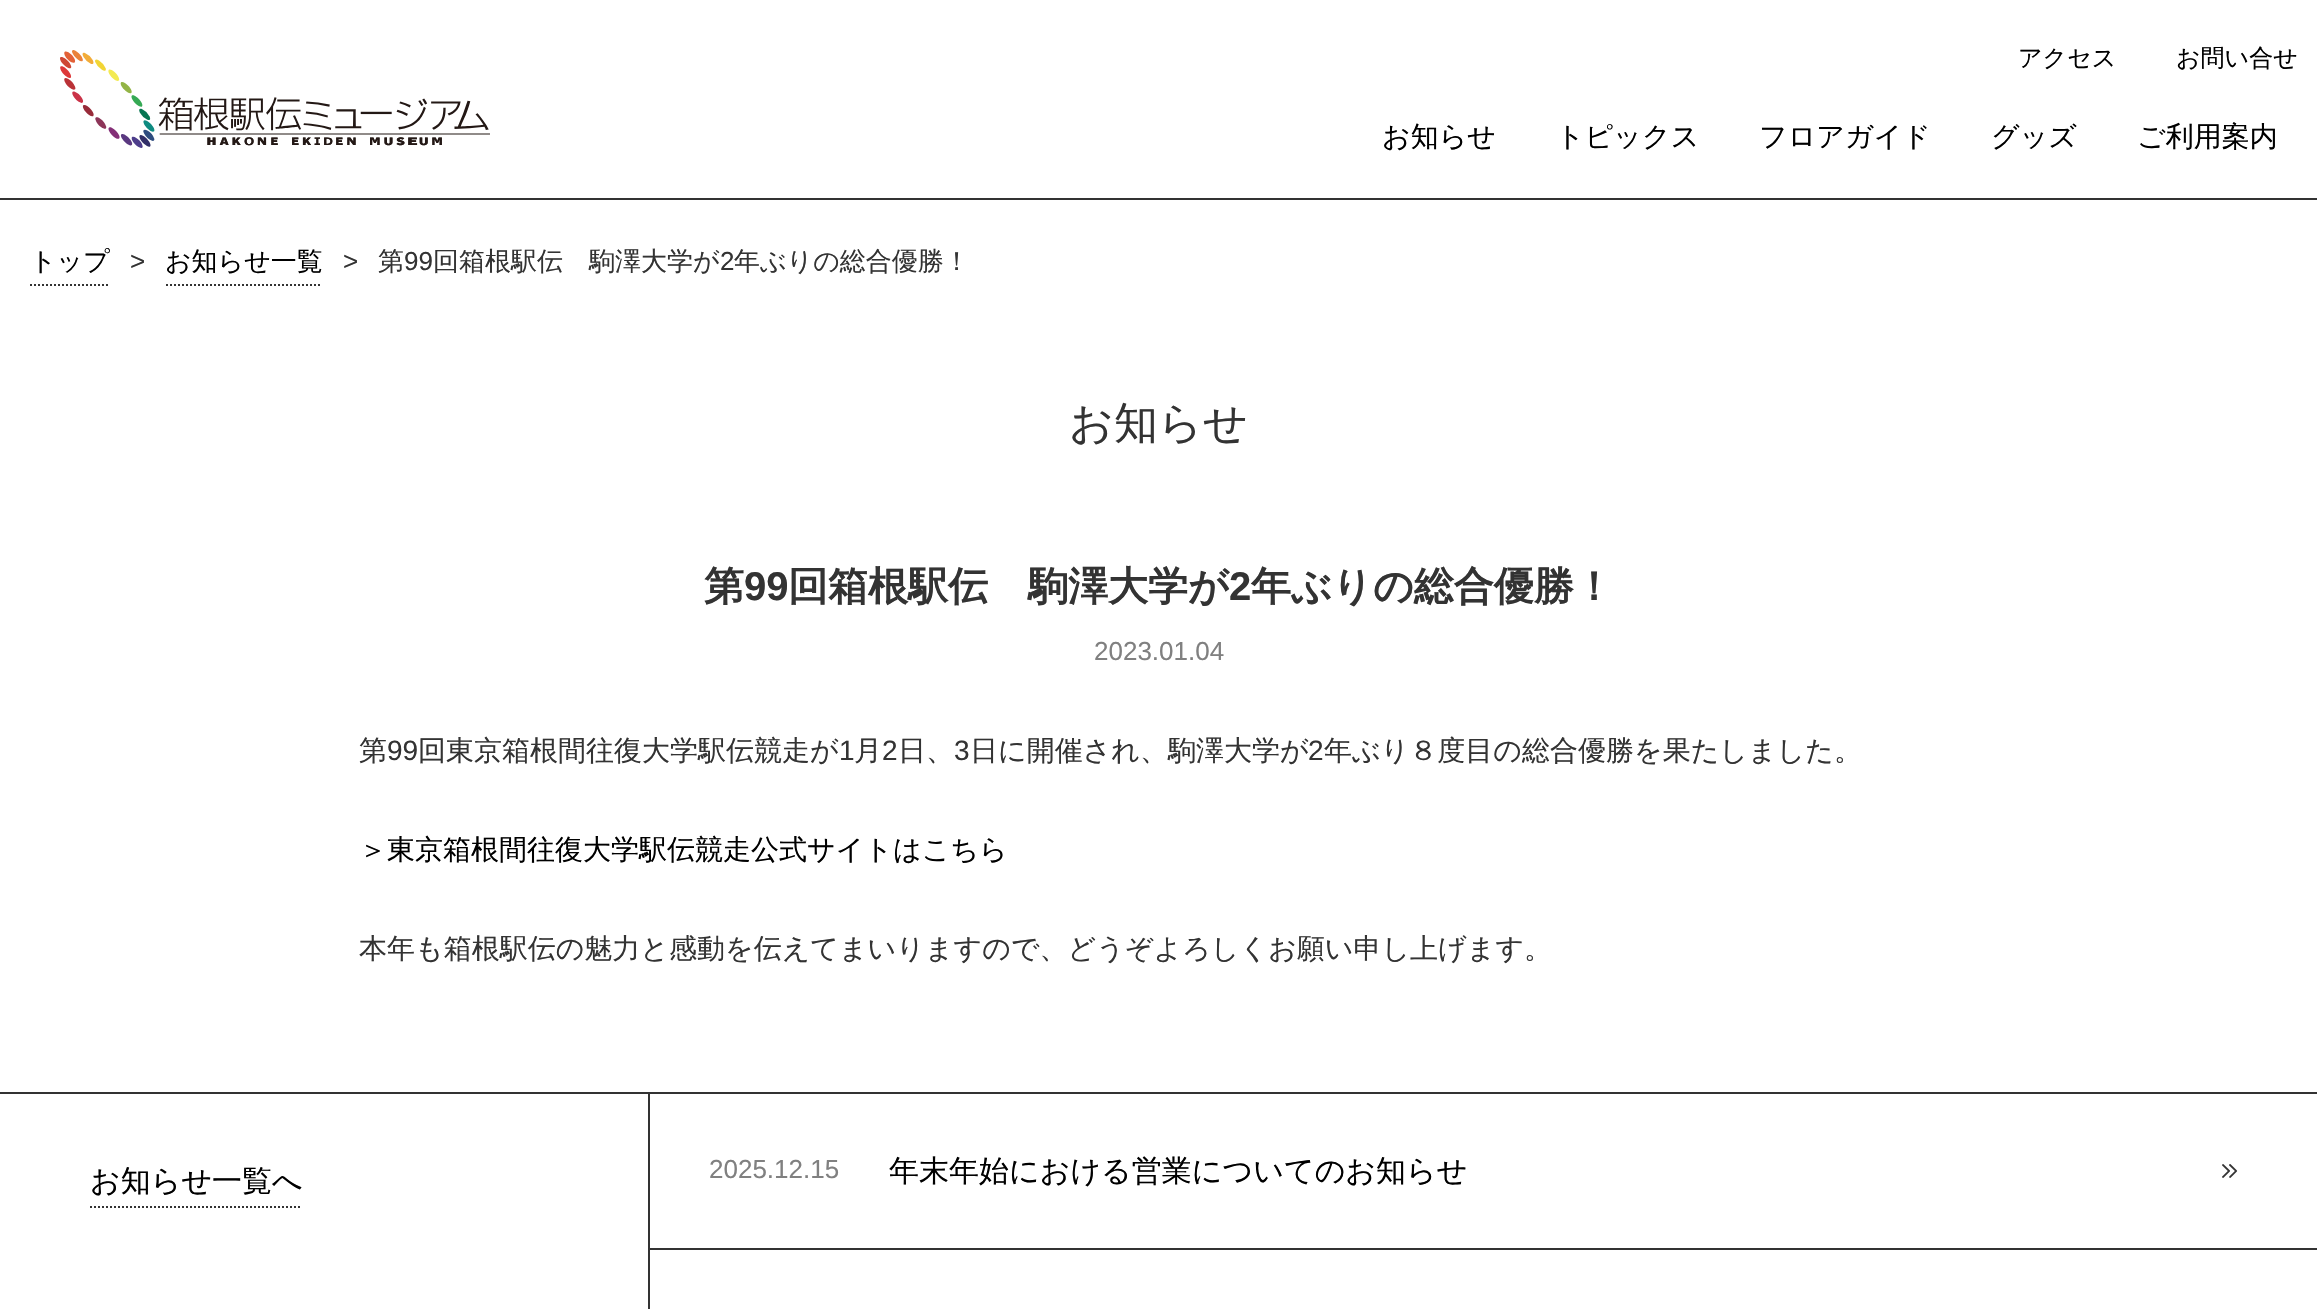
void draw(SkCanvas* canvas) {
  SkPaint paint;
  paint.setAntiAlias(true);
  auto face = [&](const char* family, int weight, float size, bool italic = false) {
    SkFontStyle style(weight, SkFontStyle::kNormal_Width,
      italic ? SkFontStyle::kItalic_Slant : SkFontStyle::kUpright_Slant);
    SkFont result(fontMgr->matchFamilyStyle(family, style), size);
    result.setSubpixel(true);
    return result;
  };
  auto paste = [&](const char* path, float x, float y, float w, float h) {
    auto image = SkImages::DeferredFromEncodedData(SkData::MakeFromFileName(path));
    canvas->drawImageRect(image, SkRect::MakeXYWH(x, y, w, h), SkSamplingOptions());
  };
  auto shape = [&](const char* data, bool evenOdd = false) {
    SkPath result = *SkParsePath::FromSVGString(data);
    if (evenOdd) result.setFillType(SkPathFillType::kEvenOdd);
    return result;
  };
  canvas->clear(0xffffffff);
  paint.setColor(0xff333333);
  canvas->drawRect(SkRect::MakeXYWH(0, 198, 2317, 2), paint);
  paste("img/1.png", 60, 50, 430, 98);
  paint.setStroke(true);
  paint.setStrokeWidth(2);
  paint.setPathEffect(SkDashPathEffect::Make({{2, 2}}, 0));
  canvas->drawPath(shape("M30 285H110"), paint);
  paint.setPathEffect(nullptr);
  paint.setPathEffect(SkDashPathEffect::Make({{2, 2}}, 0));
  canvas->drawPath(shape("M166 285H322"), paint);
  paint.setPathEffect(nullptr);
  paint.setStroke(false);
  canvas->drawRect(SkRect::MakeXYWH(0, 1092, 2317, 2), paint);
  canvas->drawRect(SkRect::MakeXYWH(648, 1094, 2, 215), paint);
  paint.setStroke(true);
  paint.setPathEffect(SkDashPathEffect::Make({{2, 2}}, 0));
  canvas->drawPath(shape("M90 1207H302"), paint);
  paint.setPathEffect(nullptr);
  paste("img/2.png", 2222, 1164, 16, 14);
  paint.setStroke(false);
  canvas->drawRect(SkRect::MakeXYWH(650, 1248, 1667, 2), paint);
  auto f0 = face("WenQuanYi Zen Hei", 500, 24);
  paint.setColor(0xff000000);
  canvas->drawString("アクセス", 2018, 66, f0, paint);
  canvas->drawString("お問い合せ", 2176, 66, f0, paint);
  auto f1 = face("WenQuanYi Zen Hei", 500, 28);
  {
    const struct { const char* s; float x, y; } items[] = {
      {"お知らせ", 1382, 146},
      {"トピックス", 1556, 146},
      {"フロアガイド", 1759, 146},
      {"グッズ", 1991, 146},
      {"ご利用案内", 2137, 146},
    };
    for (auto [s, x, y] : items) {
      canvas->drawString(s, x, y, f1, paint);
    }
  }
  auto f2 = face("WenQuanYi Zen Hei", 500, 26);
  canvas->drawString("トップ", 30, 270, f2, paint);
  auto f3 = face("Liberation Sans", 400, 26);
  paint.setColor(0xff333333);
  canvas->drawString(">", 130, 270, f3, paint);
  paint.setColor(0xff000000);
  canvas->drawString("お知らせ一覧", 165, 270, f2, paint);
  paint.setColor(0xff333333);
  canvas->drawString(">", 343, 270, f3, paint);
  canvas->drawString("第", 378, 270, f2, paint);
  canvas->drawString("99", 404, 270, f3, paint);
  canvas->drawString("回箱根駅伝　駒澤大学が", 433, 270, f2, paint);
  canvas->drawString("2", 720, 270, f3, paint);
  canvas->drawString("年ぶりの総合優勝！", 734, 270, f2, paint);
  auto f4 = face("WenQuanYi Zen Hei", 500, 44);
  canvas->drawString("お知らせ", 1069, 438, f4, paint);
  auto f5 = face("WenQuanYi Zen Hei", 700, 40);
  canvas->drawString("第", 704, 600, f5, paint);
  auto f6 = face("Liberation Sans", 700, 40);
  canvas->drawString("99", 744, 600, f6, paint);
  canvas->drawString("回箱根駅伝　駒澤大学が", 788, 600, f5, paint);
  canvas->drawString("2", 1229, 600, f6, paint);
  canvas->drawString("年ぶりの総合優勝！", 1251, 600, f5, paint);
  paint.setColor(0xff808080);
  canvas->drawString("2023.01.04", 1094, 660, f3, paint);
  paint.setColor(0xff333333);
  canvas->drawString("第", 359, 760, f1, paint);
  auto f7 = face("Liberation Sans", 400, 28);
  canvas->drawString("99", 387, 760, f7, paint);
  canvas->drawString("回東京箱根間往復大学駅伝競走が", 418, 760, f1, paint);
  canvas->drawString("1", 839, 760, f7, paint);
  canvas->drawString("月", 854, 760, f1, paint);
  canvas->drawString("2", 882, 760, f7, paint);
  canvas->drawString("日、", 898, 760, f1, paint);
  canvas->drawString("3", 954, 760, f7, paint);
  canvas->drawString("日に開催され、駒澤大学が", 970, 760, f1, paint);
  canvas->drawString("2", 1308, 760, f7, paint);
  canvas->drawString("年ぶり８度目の総合優勝を果たしました。", 1324, 760, f1, paint);
  paint.setColor(0xff000000);
  canvas->drawString("＞東京箱根間往復大学駅伝競走公式サイトはこちら", 359, 859, f1, paint);
  paint.setColor(0xff333333);
  canvas->drawString("本年も箱根駅伝の魅力と感動を伝えてまいりますので、どうぞよろしくお願い申し上げます。", 359, 958, f1, paint);
  auto f8 = face("WenQuanYi Zen Hei", 500, 30);
  paint.setColor(0xff000000);
  canvas->drawString("お知らせ一覧へ", 90, 1191, f8, paint);
  paint.setColor(0xff808080);
  canvas->drawString("2025.12.15", 709, 1178, f3, paint);
  paint.setColor(0xff000000);
  canvas->drawString("年末年始における営業についてのお知らせ", 889, 1181, f8, paint);
}
